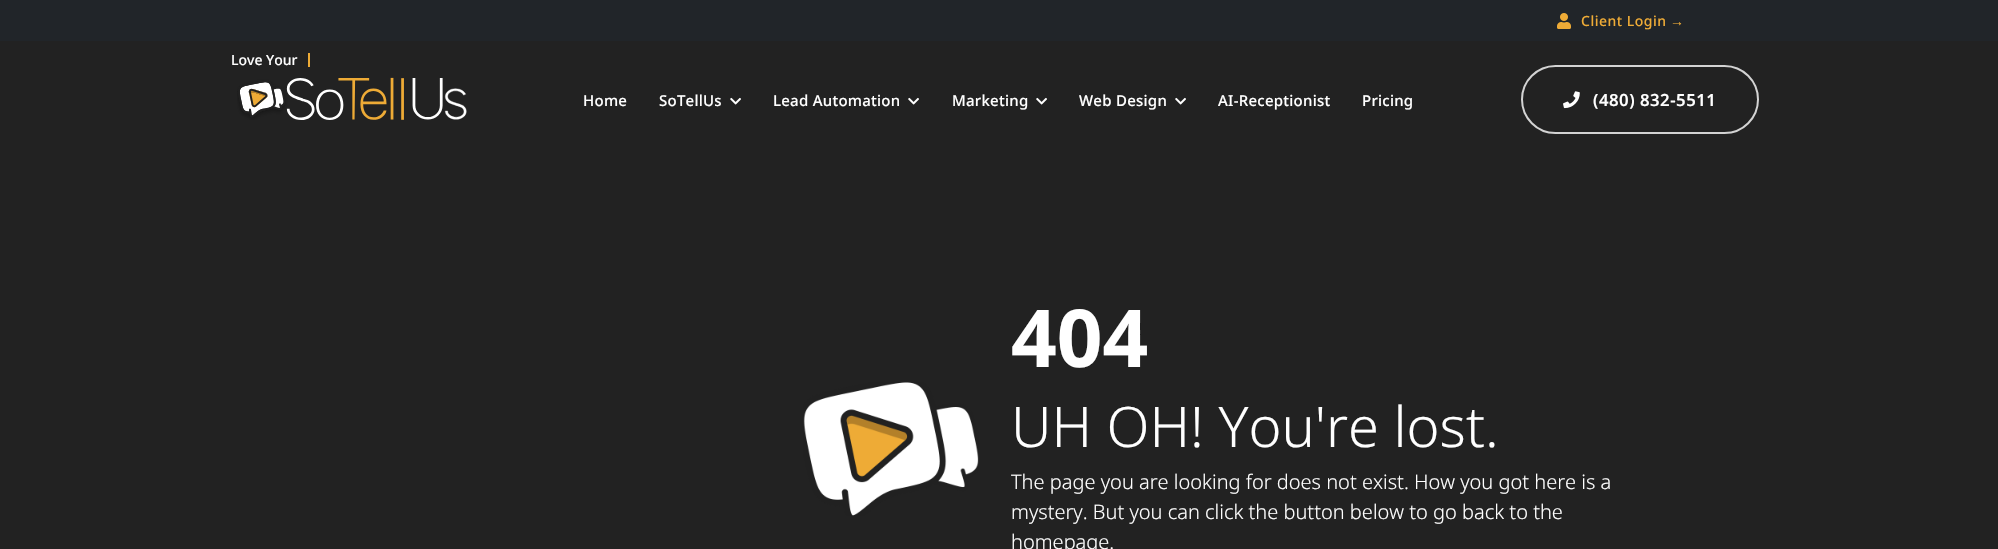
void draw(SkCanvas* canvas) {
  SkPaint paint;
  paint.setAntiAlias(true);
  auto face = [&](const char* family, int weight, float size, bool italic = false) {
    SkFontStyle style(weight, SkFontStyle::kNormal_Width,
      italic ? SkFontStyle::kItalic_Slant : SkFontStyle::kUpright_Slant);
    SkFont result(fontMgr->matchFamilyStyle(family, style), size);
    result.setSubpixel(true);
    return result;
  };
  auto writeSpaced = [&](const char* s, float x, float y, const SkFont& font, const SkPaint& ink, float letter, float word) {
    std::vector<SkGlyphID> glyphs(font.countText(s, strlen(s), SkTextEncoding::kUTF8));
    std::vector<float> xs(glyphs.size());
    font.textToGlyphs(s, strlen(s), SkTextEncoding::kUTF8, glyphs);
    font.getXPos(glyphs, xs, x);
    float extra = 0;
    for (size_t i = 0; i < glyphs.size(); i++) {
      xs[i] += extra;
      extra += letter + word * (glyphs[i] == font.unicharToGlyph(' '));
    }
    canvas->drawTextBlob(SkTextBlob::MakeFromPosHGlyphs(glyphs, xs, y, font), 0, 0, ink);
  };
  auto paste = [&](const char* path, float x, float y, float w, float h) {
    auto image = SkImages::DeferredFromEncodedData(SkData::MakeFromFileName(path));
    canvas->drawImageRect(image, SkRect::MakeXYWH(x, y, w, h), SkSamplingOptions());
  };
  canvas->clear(0xff222222);
  paint.setColor(0xff212529);
  canvas->drawRect(SkRect::MakeXYWH(0, 0, 1998, 41), paint);
  paste("img/1.png", 1557, 13, 14, 16);
  paint.setColor(0xffeeab36);
  canvas->drawRect(SkRect::MakeXYWH(308, 53, 2, 14), paint);
  paste("img/2.png", 237, 77, 230, 43);
  paste("img/3.png", 730, 97, 11, 8);
  paste("img/3.png", 908, 97, 11, 8);
  paste("img/3.png", 1036, 97, 11, 8);
  paste("img/3.png", 1175, 97, 11, 8);
  paint.setStroke(true);
  paint.setStrokeWidth(2);
  paint.setColor(0xffd3d3d3);
  canvas->drawRoundRect(SkRect::MakeXYWH(1522, 66, 236, 67), 33.5f, 33.5f, paint);
  paste("img/4.png", 1563, 91, 17, 18);
  paste("img/5.png", 803, 382, 176, 134);
  auto f0 = face("Noto Sans", 500, 14);
  paint.setStroke(false);
  paint.setColor(0xffeeab36);
  writeSpaced("Client Login", 1581, 26, f0, paint, 0.5f, 0);
  auto f1 = face("Liberation Sans", 400, 14);
  writeSpaced("→", 1670, 26, f1, paint, 0.5f, 0);
  paint.setColor(0xffffffff);
  canvas->drawString("Love Your", 231, 65, f0, paint);
  auto f2 = face("Noto Sans", 500, 15);
  {
    const struct { const char* s; float x, y; } items[] = {
      {"Home", 583, 106},
      {"SoTellUs", 659, 106},
      {"Lead Automation", 773, 106},
      {"Marketing", 952, 106},
      {"Web Design", 1079, 106},
      {"AI-Receptionist", 1218, 106},
      {"Pricing", 1362, 106},
    };
    for (auto [s, x, y] : items) {
      writeSpaced(s, x, y, f2, paint, 0.25f, 0);
    }
  }
  auto f3 = face("Noto Sans", 600, 16.75f);
  writeSpaced("(480) 832-5511", 1593, 106, f3, paint, 0.5f, 0);
  auto f4 = face("Noto Sans", 700, 80);
  canvas->drawString("404", 1011, 367, f4, paint);
  auto f5 = face("Noto Sans", 300, 56);
  canvas->drawString("UH OH! You're lost.", 1011, 447, f5, paint);
  auto f6 = face("Noto Sans", 300, 20);
  {
    const struct { const char* s; float x, y; } items[] = {
      {"The page you are looking for does not exist. How you got here is a", 1011, 489},
      {"mystery. But you can click the button below to go back to the", 1011, 519},
      {"homepage.", 1011, 549},
    };
    for (auto [s, x, y] : items) {
      canvas->drawString(s, x, y, f6, paint);
    }
  }
}
